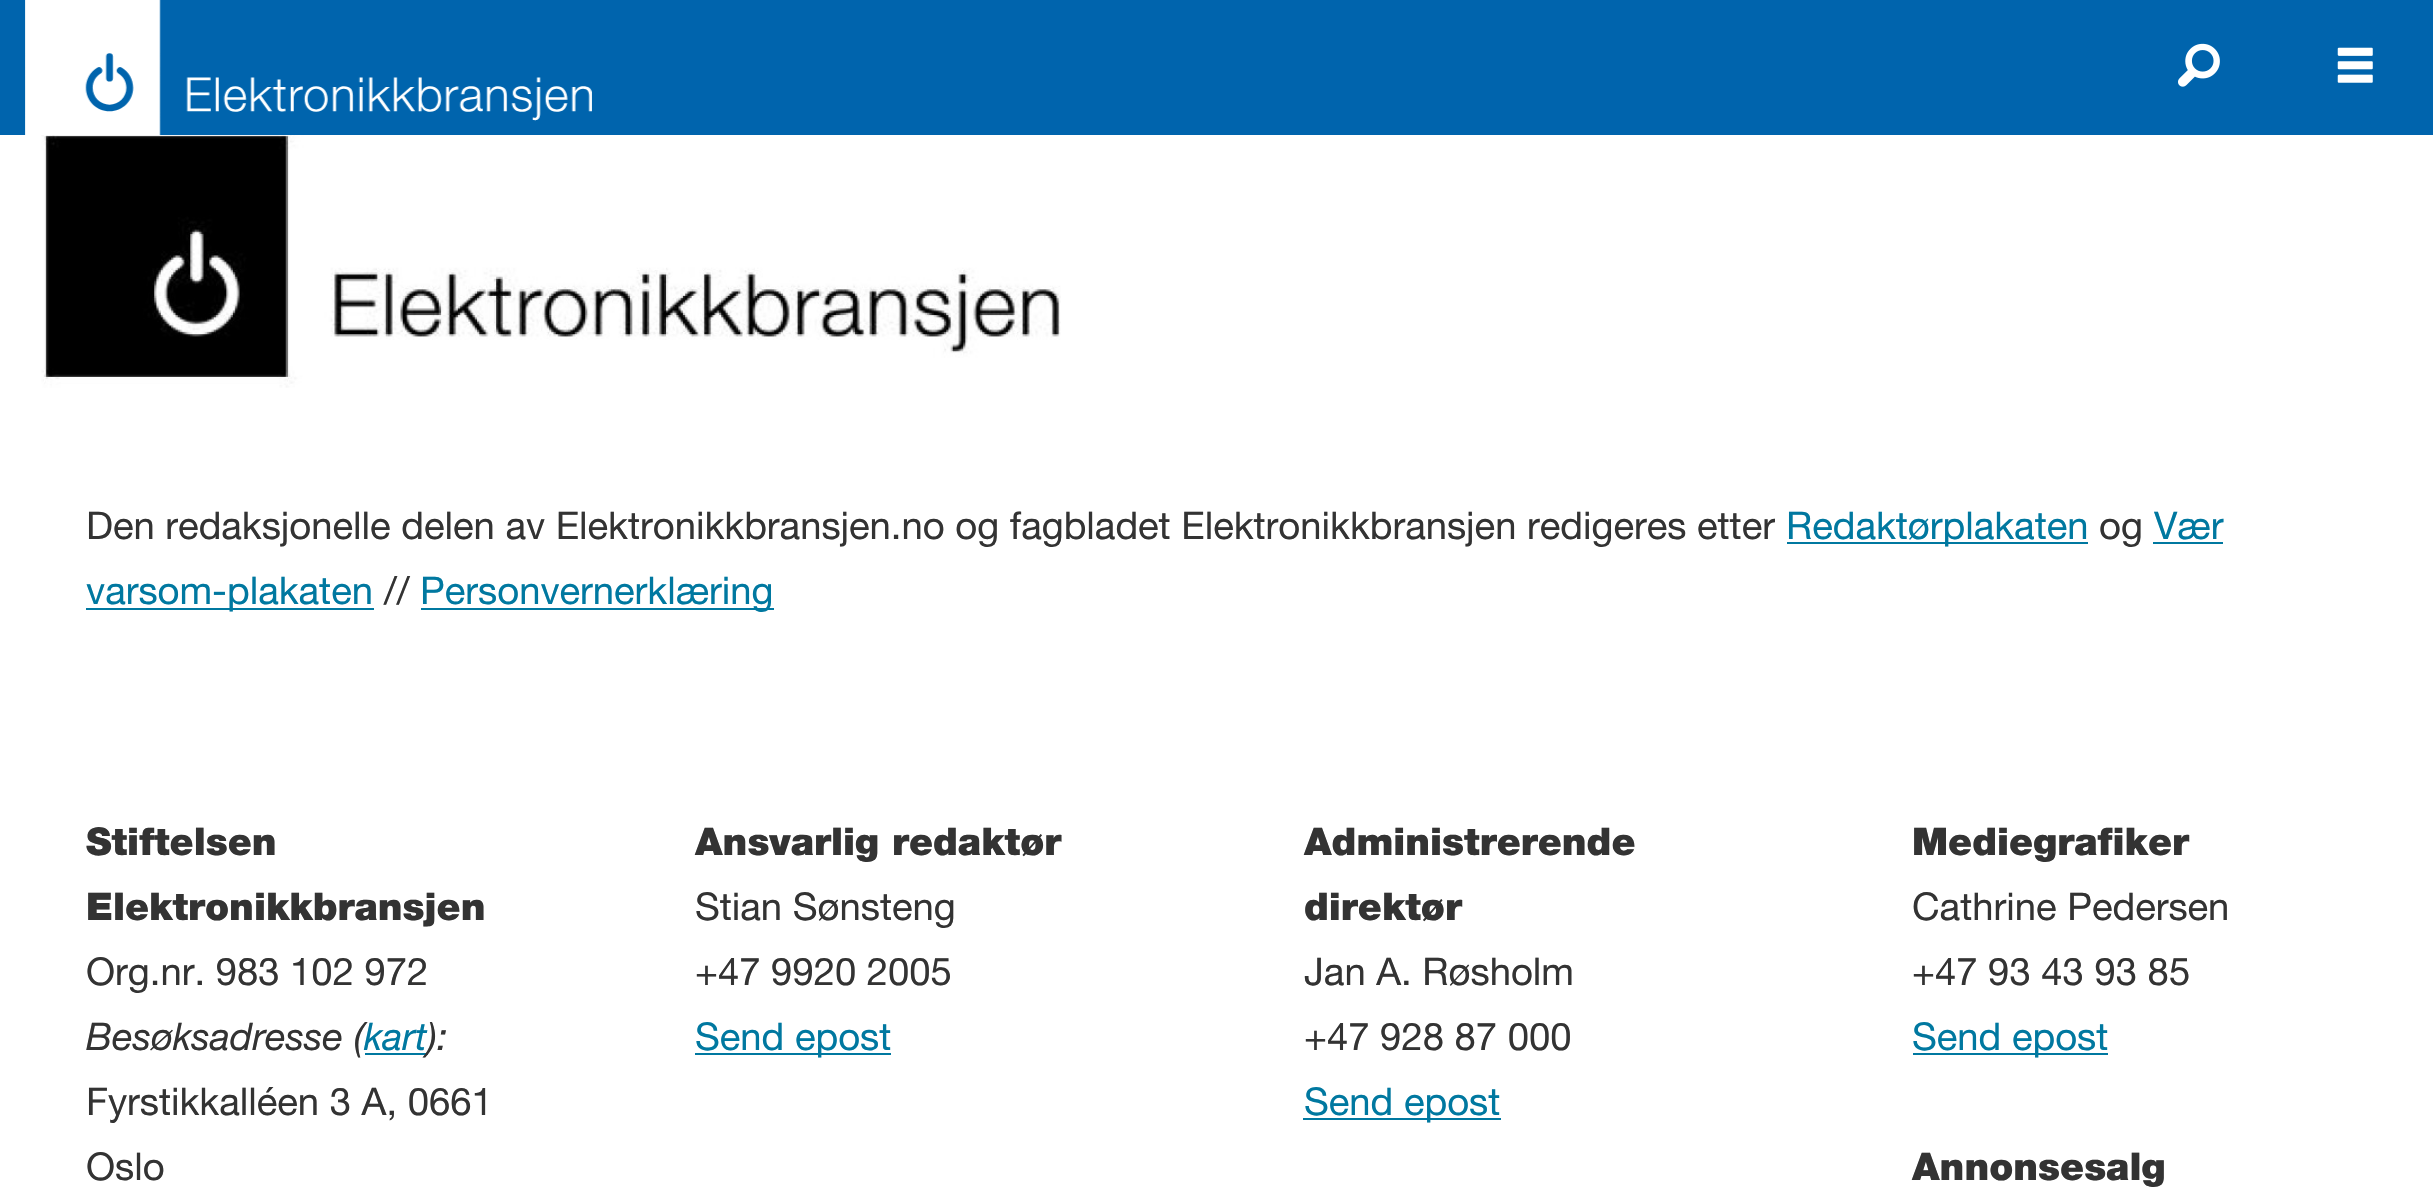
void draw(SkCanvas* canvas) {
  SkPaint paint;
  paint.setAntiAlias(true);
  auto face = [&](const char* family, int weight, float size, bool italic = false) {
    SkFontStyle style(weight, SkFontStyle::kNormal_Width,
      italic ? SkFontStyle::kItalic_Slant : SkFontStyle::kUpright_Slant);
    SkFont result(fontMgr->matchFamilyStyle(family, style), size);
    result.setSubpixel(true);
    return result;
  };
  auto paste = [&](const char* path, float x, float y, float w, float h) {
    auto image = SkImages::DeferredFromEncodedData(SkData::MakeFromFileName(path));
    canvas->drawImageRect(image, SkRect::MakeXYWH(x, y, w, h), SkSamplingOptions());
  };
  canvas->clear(0xffffffff);
  paint.setColor(0xff0064ad);
  canvas->drawRect(SkRect::MakeXYWH(0, 0, 2433, 135), paint);
  paste("img/1.png", 25, 0, 567, 135);
  paste("img/2.png", 2178, 43, 42, 44);
  paste("img/3.png", 2337, 47, 36, 36);
  paste("img/4.png", 41, 135, 1020, 253);
  {
    const struct { float x, y, w, h; SkColor color; } items[] = {
      {1787, 542, 301, 2, 0xff0078a0},
      {2153, 542, 70, 2, 0xff0078a0},
      {86, 608, 288, 2, 0xff0078a0},
      {421, 608, 353, 2, 0xff0078a0},
      {695, 1053, 196, 2, 0xff0078a0},
      {1303, 1118, 198, 2, 0xff0078a0},
      {1913, 1053, 195, 2, 0xff0078a0},
    };
    for (auto [x, y, w, h, color] : items) {
      paint.setColor(color);
      canvas->drawRect(SkRect::MakeXYWH(x, y, w, h), paint);
    }
  }
  auto f0 = face("Helvetica Neue", 400, 38.25f);
  paint.setColor(0xff333333);
  canvas->drawString("Den redaksjonelle delen av Elektronikkbransjen.no og fagbladet Elektronikkbransjen redigeres etter", 86, 539, f0, paint);
  paint.setColor(0xff0078a0);
  canvas->drawString("Redaktørplakaten", 1786, 539, f0, paint);
  paint.setColor(0xff333333);
  canvas->drawString("og", 2099, 539, f0, paint);
  paint.setColor(0xff0078a0);
  canvas->drawString("Vær", 2154, 539, f0, paint);
  canvas->drawString("varsom-plakaten", 86, 604, f0, paint);
  paint.setColor(0xff333333);
  canvas->drawString("//", 384, 604, f0, paint);
  paint.setColor(0xff0078a0);
  canvas->drawString("Personvernerklæring", 420, 604, f0, paint);
  auto f1 = face("Helvetica Neue", 900, 38.25f);
  paint.setColor(0xff333333);
  canvas->drawString("Stiftelsen", 86, 855, f1, paint);
  canvas->drawString("Elektronikkbransjen", 86, 920, f1, paint);
  canvas->drawString("Org.nr. 983 102 972", 86, 985, f0, paint);
  auto f2 = face("Helvetica Neue", 400, 38.25f, true);
  canvas->drawString("Besøksadresse (", 86, 1050, f2, paint);
  paint.setColor(0xff0078a0);
  canvas->drawRect(SkRect::MakeXYWH(365, 1053, 63, 2), paint);
  canvas->drawString("kart", 364, 1050, f2, paint);
  paint.setColor(0xff333333);
  canvas->drawString("):", 427, 1050, f2, paint);
  canvas->drawString("Fyrstikkalléen 3 A, 0661", 86, 1115, f0, paint);
  canvas->drawString("Oslo", 86, 1180, f0, paint);
  canvas->drawString("Ansvarlig redaktør", 695, 855, f1, paint);
  canvas->drawString("Stian Sønsteng", 695, 920, f0, paint);
  canvas->drawString("+47 9920 2005", 695, 985, f0, paint);
  paint.setColor(0xff0078a0);
  canvas->drawString("Send epost", 695, 1050, f0, paint);
  paint.setColor(0xff333333);
  canvas->drawString("Administrerende", 1304, 855, f1, paint);
  canvas->drawString("direktør", 1304, 920, f1, paint);
  canvas->drawString("Jan A. Røsholm", 1304, 985, f0, paint);
  canvas->drawString("+47 928 87 000", 1304, 1050, f0, paint);
  paint.setColor(0xff0078a0);
  canvas->drawString("Send epost", 1304, 1115, f0, paint);
  paint.setColor(0xff333333);
  canvas->drawString("Mediegrafiker", 1912, 855, f1, paint);
  canvas->drawString("Cathrine Pedersen", 1912, 920, f0, paint);
  canvas->drawString("+47 93 43 93 85", 1912, 985, f0, paint);
  paint.setColor(0xff0078a0);
  canvas->drawString("Send epost", 1912, 1050, f0, paint);
  paint.setColor(0xff333333);
  canvas->drawString("Annonsesalg", 1912, 1180, f1, paint);
}
